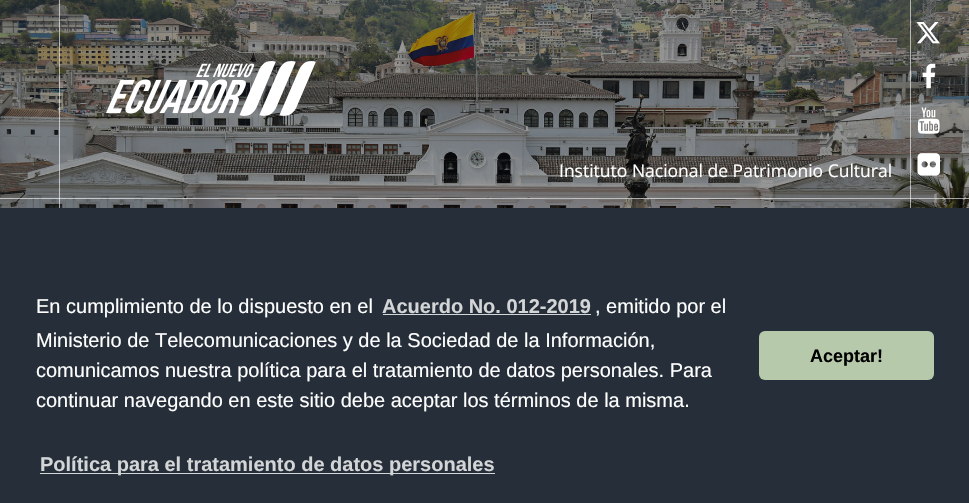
void draw(SkCanvas* canvas) {
  SkPaint paint;
  paint.setAntiAlias(true);
  auto face = [&](const char* family, int weight, float size, bool italic = false) {
    SkFontStyle style(weight, SkFontStyle::kNormal_Width,
      italic ? SkFontStyle::kItalic_Slant : SkFontStyle::kUpright_Slant);
    SkFont result(fontMgr->matchFamilyStyle(family, style), size);
    result.setSubpixel(true);
    return result;
  };
  auto paste = [&](const char* path, float x, float y, float w, float h) {
    auto image = SkImages::DeferredFromEncodedData(SkData::MakeFromFileName(path));
    canvas->drawImageRect(image, SkRect::MakeXYWH(x, y, w, h), SkSamplingOptions());
  };
  canvas->clear(0xffffffff);
  paste("img/1.png", 0, 0, 969, 208);
  paint.setColor(0x99ffffff);
  canvas->drawRect(SkRect::MakeXYWH(910, 0, 1, 208), paint);
  canvas->drawRect(SkRect::MakeXYWH(59, 0, 1, 208), paint);
  paste("img/2.png", 106, 61, 210, 55);
  paste("img/3.png", 916, 22, 24, 22);
  paste("img/4.png", 922, 63, 14, 26);
  paste("img/5.png", 917, 107, 23, 27);
  paste("img/6.png", 917, 153, 23, 23);
  {
    const struct { float x, y, w, h; SkColor color; } items[] = {
      {0, 198, 969, 1, 0x99ffffff},
      {0, 208, 969, 295, 0xff252e39},
      {383, 314, 208, 1, 0xffd3d5d7},
      {40, 473, 455, 1, 0xffd3d5d7},
    };
    for (auto [x, y, w, h, color] : items) {
      paint.setColor(color);
      canvas->drawRect(SkRect::MakeXYWH(x, y, w, h), paint);
    }
  }
  paint.setColor(0xffb6c9aa);
  canvas->drawRoundRect(SkRect::MakeXYWH(759, 331, 175, 49), 6, 6, paint);
  auto f0 = face("Open Sans", 400, 17.5f);
  paint.setColor(0xffffffff);
  canvas->drawString("Instituto Nacional de Patrimonio Cultural", 559, 177, f0, paint);
  auto f1 = face("Liberation Sans", 400, 20);
  canvas->drawString("En cumplimiento de lo dispuesto en el", 36, 313, f1, paint);
  auto f2 = face("Liberation Sans", 700, 20);
  paint.setColor(0xffd3d5d7);
  canvas->drawString("Acuerdo No. 012-2019", 382, 313, f2, paint);
  paint.setColor(0xffffffff);
  {
    const struct { const char* s; float x, y; } items[] = {
      {", emitido por el", 595, 313},
      {"Ministerio de Telecomunicaciones y de la Sociedad de la Información,", 36, 347},
      {"comunicamos nuestra política para el tratamiento de datos personales. Para", 36, 377},
      {"continuar navegando en este sitio debe aceptar los términos de la misma.", 36, 407},
    };
    for (auto [s, x, y] : items) {
      canvas->drawString(s, x, y, f1, paint);
    }
  }
  paint.setColor(0xffd3d5d7);
  canvas->drawString("Política para el tratamiento de datos personales", 40, 471, f2, paint);
  auto f3 = face("Liberation Sans", 700, 18);
  paint.setColor(0xff000000);
  canvas->drawString("Aceptar!", 810, 362, f3, paint);
}
